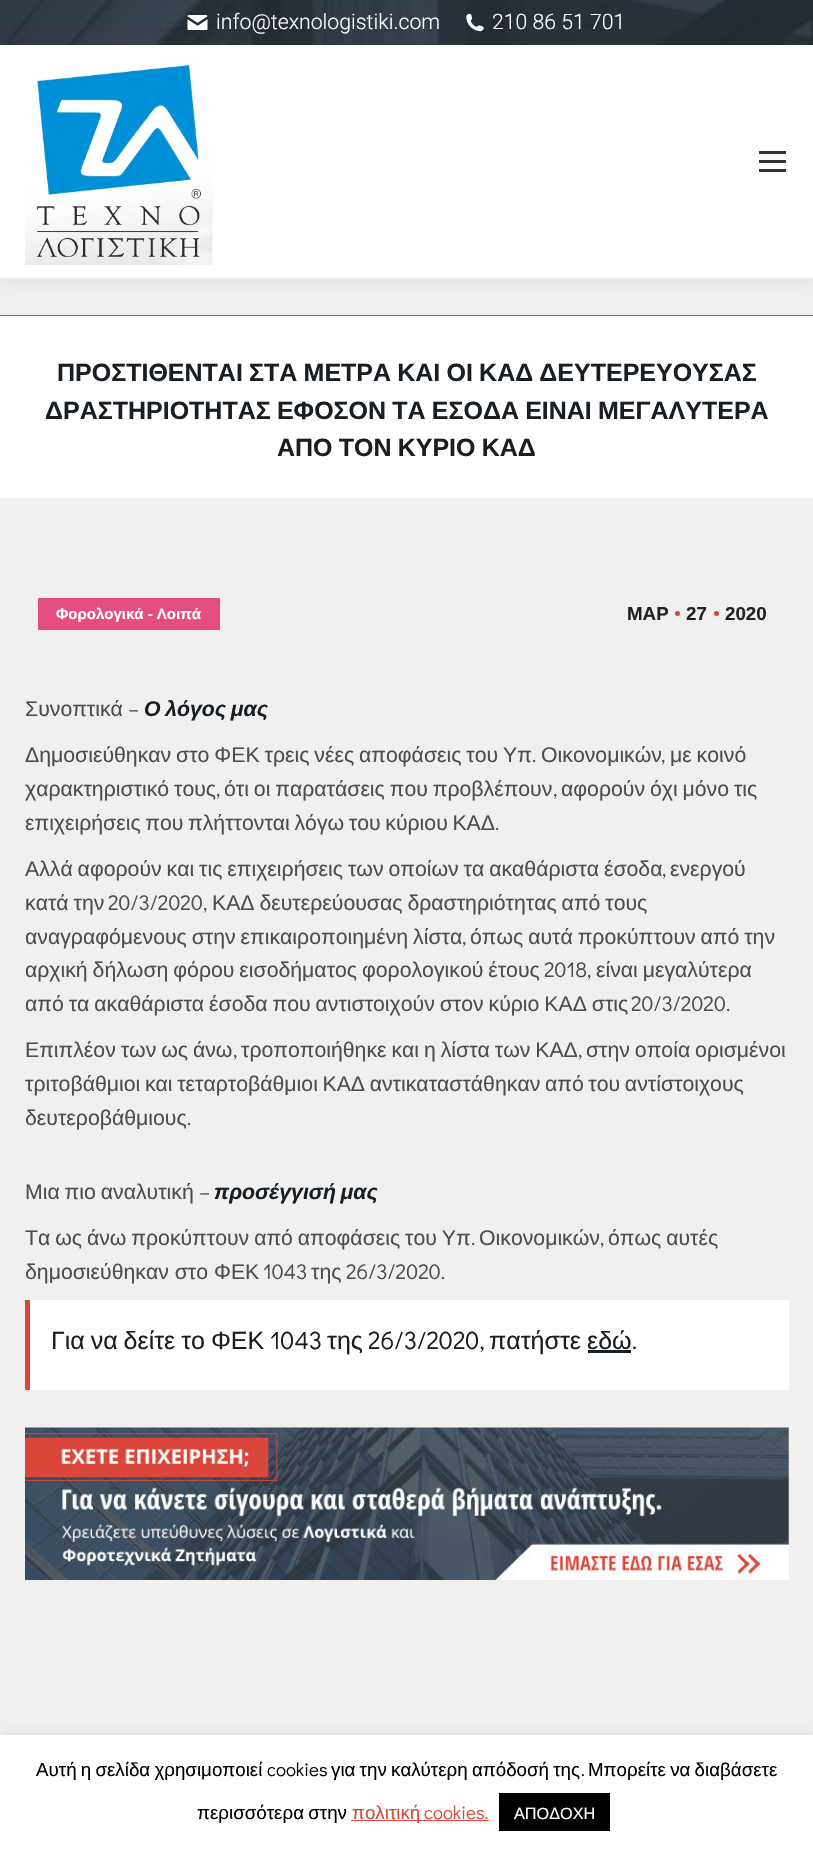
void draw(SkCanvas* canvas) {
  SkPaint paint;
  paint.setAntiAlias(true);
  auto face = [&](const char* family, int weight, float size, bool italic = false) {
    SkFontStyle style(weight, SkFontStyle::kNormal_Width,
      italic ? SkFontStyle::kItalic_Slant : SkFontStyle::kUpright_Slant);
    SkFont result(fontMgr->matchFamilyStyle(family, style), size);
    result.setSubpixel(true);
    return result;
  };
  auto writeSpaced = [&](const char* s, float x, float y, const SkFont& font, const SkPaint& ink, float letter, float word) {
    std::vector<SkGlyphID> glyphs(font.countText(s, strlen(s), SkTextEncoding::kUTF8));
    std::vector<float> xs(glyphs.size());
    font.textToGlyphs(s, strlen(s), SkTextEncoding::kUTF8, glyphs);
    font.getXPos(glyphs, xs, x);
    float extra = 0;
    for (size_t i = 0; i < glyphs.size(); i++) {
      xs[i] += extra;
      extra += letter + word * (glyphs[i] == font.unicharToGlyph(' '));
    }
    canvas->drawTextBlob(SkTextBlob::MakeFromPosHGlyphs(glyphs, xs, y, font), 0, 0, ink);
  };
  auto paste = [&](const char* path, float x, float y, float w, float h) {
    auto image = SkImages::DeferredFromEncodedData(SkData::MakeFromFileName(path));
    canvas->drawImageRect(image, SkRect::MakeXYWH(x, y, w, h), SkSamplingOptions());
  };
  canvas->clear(0xfff0f0f0);
  paint.setColor(0x12000000);
  paint.setMaskFilter(SkMaskFilter::MakeBlur(kNormal_SkBlurStyle, 9.5f));
  canvas->drawRect(SkRect::MakeXYWH(-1, -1, 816, 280), paint);
  paint.setMaskFilter(nullptr);
  paint.setColor(0xffffffff);
  canvas->drawRect(SkRect::MakeXYWH(0, 45, 813, 233), paint);
  paste("img/1.png", 0, 0, 813, 45);
  paste("img/2.png", 187, 15, 21, 15);
  paste("img/3.png", 466, 13, 18, 19);
  paste("img/4.png", 25, 63, 188, 202);
  {
    const struct { float x, y, w, h; SkColor color; } items[] = {
      {759, 151, 27, 3, 0xff333333},
      {759, 160, 27, 3, 0xff333333},
      {759, 169, 27, 3, 0xff333333},
      {0, 316, 813, 182, 0xffffffff},
      {0, 315, 813, 1, 0xff0090d7},
      {38, 598, 182, 32, 0xffe54e7e},
    };
    for (auto [x, y, w, h, color] : items) {
      paint.setColor(color);
      canvas->drawRect(SkRect::MakeXYWH(x, y, w, h), paint);
    }
  }
  paint.setColor(0xffda4639);
  canvas->drawCircle(677.5f, 613.5f, 2.5f, paint);
  canvas->drawCircle(716.5f, 613.5f, 2.5f, paint);
  {
    const struct { float x, y, w, h; SkColor color; } items[] = {
      {30, 1300, 759, 90, 0xffffffff},
      {25, 1300, 5, 90, 0xffda4639},
      {588, 1350, 43, 3, 0xff191e23},
    };
    for (auto [x, y, w, h, color] : items) {
      paint.setColor(color);
      canvas->drawRect(SkRect::MakeXYWH(x, y, w, h), paint);
    }
  }
  paste("img/5.png", 25, 1427, 764, 153);
  paint.setColor(0x4dacabab);
  paint.setMaskFilter(SkMaskFilter::MakeBlur(kNormal_SkBlurStyle, 6));
  canvas->drawRect(SkRect::MakeXYWH(0, 1734, 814, 117), paint);
  paint.setMaskFilter(nullptr);
  {
    const struct { float x, y, w, h; SkColor color; } items[] = {
      {0, 1735, 813, 117, 0xffffffff},
      {351, 1820, 138, 1, 0xffda4639},
      {499, 1793, 111, 38, 0xff000000},
    };
    for (auto [x, y, w, h, color] : items) {
      paint.setColor(color);
      canvas->drawRect(SkRect::MakeXYWH(x, y, w, h), paint);
    }
  }
  auto f0 = face("Roboto", 300, 21.25f);
  paint.setColor(0xffffffff);
  canvas->drawString("info@texnologistiki.com", 216, 29, f0, paint);
  canvas->drawString("210 86 51 701", 492, 29, f0, paint);
  auto f1 = face("Liberation Sans", 700, 25);
  paint.setColor(0xff191e23);
  {
    const struct { const char* s; float x, y; } items[] = {
      {"ΠΡΟΣΤΙΘΕΝΤΑΙ ΣΤΑ ΜΕΤΡΑ ΚΑΙ ΟΙ ΚΑΔ ΔΕΥΤΕΡΕΥΟΥΣΑΣ", 57, 381},
      {"ΔΡΑΣΤΗΡΙΟΤΗΤΑΣ ΕΦΟΣΟΝ ΤΑ ΕΣΟΔΑ ΕΙΝΑΙ ΜΕΓΑΛΥΤΕΡΑ", 45, 419},
      {"ΑΠΟ ΤΟΝ ΚΥΡΙΟ ΚΑΔ", 277, 456},
    };
    for (auto [s, x, y] : items) {
      writeSpaced(s, x, y, f1, paint, 0, -0.75f);
    }
  }
  auto f2 = face("Liberation Sans", 700, 15);
  paint.setColor(0xffffffff);
  canvas->drawString("Φορολογικά - Λοιπά", 56, 619, f2, paint);
  auto f3 = face("Liberation Sans", 700, 18.75f);
  paint.setColor(0xff222222);
  {
    const struct { const char* s; float x, y; } items[] = {
      {"ΜΑΡ", 627, 620},
      {"27", 686, 620},
      {"2020", 725, 620},
    };
    for (auto [s, x, y] : items) {
      canvas->drawString(s, x, y, f3, paint);
    }
  }
  auto f4 = face("Liberation Sans", 400, 21.25f);
  paint.setColor(0xff4d4d4d);
  canvas->drawString("Συνοπτικά", 25, 716, f4, paint);
  auto f5 = face("Didact Gothic", 400, 21.25f);
  canvas->drawString("–", 128, 716, f5, paint);
  auto f6 = face("Liberation Sans", 700, 21.25f, true);
  paint.setColor(0xff191e23);
  writeSpaced("Ο λόγος μας", 144, 716, f6, paint, 0, -1.25f);
  paint.setColor(0xff4d4d4d);
  writeSpaced("Δημοσιεύθηκαν στο ΦΕΚ τρεις νέες αποφάσεις του Υπ", 25, 762, f4, paint, 0, -1);
  canvas->drawString(".", 532, 762, f5, paint);
  canvas->drawString("Οικονομικών", 541, 762, f4, paint);
  canvas->drawString(",", 661, 762, f5, paint);
  writeSpaced("με κοινό", 670, 762, f4, paint, 0, -1);
  writeSpaced("χαρακτηριστικό τους", 25, 796, f4, paint, 0, -1);
  canvas->drawString(",", 216, 796, f5, paint);
  writeSpaced("ότι οι παρατάσεις που προβλέπουν", 224, 796, f4, paint, 0, -1);
  canvas->drawString(",", 553, 796, f5, paint);
  writeSpaced("αφορούν όχι μόνο τις", 561, 796, f4, paint, 0, -1);
  writeSpaced("επιχειρήσεις που πλήττονται λόγω του κύριου ΚΑΔ", 25, 830, f4, paint, 0, -1.25f);
  canvas->drawString(".", 495, 830, f5, paint);
  writeSpaced("Αλλά αφορούν και τις επιχειρήσεις των οποίων τα ακαθάριστα έσοδα", 25, 876, f4, paint, 0, -1);
  canvas->drawString(",", 662, 876, f5, paint);
  canvas->drawString("ενεργού", 670, 876, f4, paint);
  writeSpaced("κατά την", 25, 910, f4, paint, 0, -1);
  canvas->drawString("20/3/2020,", 108, 910, f5, paint);
  writeSpaced("ΚΑΔ δευτερεύουσας δραστηριότητας από τους", 212, 910, f4, paint, 0, -1);
  writeSpaced("αναγραφόμενους στην επικαιροποιημένη λίστα", 25, 944, f4, paint, 0, -1);
  canvas->drawString(",", 462, 944, f5, paint);
  writeSpaced("όπως αυτά προκύπτουν από την", 470, 944, f4, paint, 0, -1);
  writeSpaced("αρχική δήλωση φόρου εισοδήματος φορολογικού έτους", 25, 977, f4, paint, 0, -1);
  canvas->drawString("2018,", 544, 977, f5, paint);
  writeSpaced("είναι μεγαλύτερα", 596, 977, f4, paint, 0, -1);
  writeSpaced("από τα ακαθάριστα έσοδα που αντιστοιχούν στον κύριο ΚΑΔ στις", 25, 1011, f4, paint, 0, -1);
  canvas->drawString("20/3/2020.", 631, 1011, f5, paint);
  writeSpaced("Επιπλέον των ως άνω", 25, 1057, f4, paint, 0, -1);
  canvas->drawString(",", 233, 1057, f5, paint);
  writeSpaced("τροποποιήθηκε και η λίστα των ΚΑΔ", 241, 1057, f4, paint, 0, -1);
  canvas->drawString(",", 578, 1057, f5, paint);
  writeSpaced("στην οποία ορισμένοι", 586, 1057, f4, paint, 0, -1);
  writeSpaced("τριτοβάθμιοι και τεταρτοβάθμιοι ΚΑΔ αντικαταστάθηκαν από του αντίστοιχους", 25, 1091, f4, paint, 0, -1.25f);
  canvas->drawString("δευτεροβάθμιους", 25, 1125, f4, paint);
  canvas->drawString(".", 187, 1125, f5, paint);
  writeSpaced("Μια πιο αναλυτική", 25, 1199, f4, paint, 0, -1);
  canvas->drawString("–", 199, 1199, f5, paint);
  paint.setColor(0xff191e23);
  writeSpaced("προσέγγισή μας", 214, 1199, f6, paint, 0, -1.25f);
  paint.setColor(0xff4d4d4d);
  writeSpaced("Τα ως άνω προκύπτουν από αποφάσεις του Υπ", 25, 1245, f4, paint, 0, -1);
  canvas->drawString(".", 471, 1245, f5, paint);
  canvas->drawString("Οικονομικών", 479, 1245, f4, paint);
  canvas->drawString(",", 600, 1245, f5, paint);
  writeSpaced("όπως αυτές", 608, 1245, f4, paint, 0, -1);
  canvas->drawString("δημοσιεύθηκαν στο ΦΕΚ", 25, 1279, f4, paint);
  canvas->drawString("1043", 263, 1279, f5, paint);
  canvas->drawString("της", 311, 1279, f4, paint);
  canvas->drawString("26/3/2020.", 346, 1279, f5, paint);
  auto f7 = face("Liberation Sans", 400, 25);
  paint.setColor(0xff191e23);
  writeSpaced("Για να δείτε το ΦΕΚ", 51, 1349, f7, paint, 0, -1);
  auto f8 = face("Didact Gothic", 400, 25);
  canvas->drawString("1043", 270, 1349, f8, paint);
  canvas->drawString("της", 327, 1349, f7, paint);
  canvas->drawString("26/3/2020,", 368, 1349, f8, paint);
  canvas->drawString("πατήστε", 489, 1349, f7, paint);
  canvas->drawString("εδώ", 587, 1349, f7, paint);
  canvas->drawString(".", 632, 1349, f8, paint);
  auto f9 = face("Liberation Sans", 400, 18.75f);
  paint.setColor(0xff000000);
  writeSpaced("Αυτή η σελίδα χρησιμοποιεί", 36, 1776, f9, paint, 0, -1);
  auto f10 = face("Didact Gothic", 400, 18.75f);
  canvas->drawString("cookies", 267, 1776, f10, paint);
  writeSpaced("για την καλύτερη απόδοσή της", 331, 1776, f9, paint, 0, -1);
  canvas->drawString(".", 581, 1776, f10, paint);
  writeSpaced("Μπορείτε να διαβάσετε", 588, 1776, f9, paint, 0, -1);
  writeSpaced("περισσότερα στην", 197, 1819, f9, paint, 0, -1);
  paint.setColor(0xffda4639);
  canvas->drawString("πολιτική", 352, 1819, f9, paint);
  canvas->drawString("cookies.", 424, 1819, f10, paint);
  auto f11 = face("Liberation Sans", 400, 16.25f);
  paint.setColor(0xffffffff);
  canvas->drawString("ΑΠΟΔΟΧΗ", 514, 1819, f11, paint);
}
